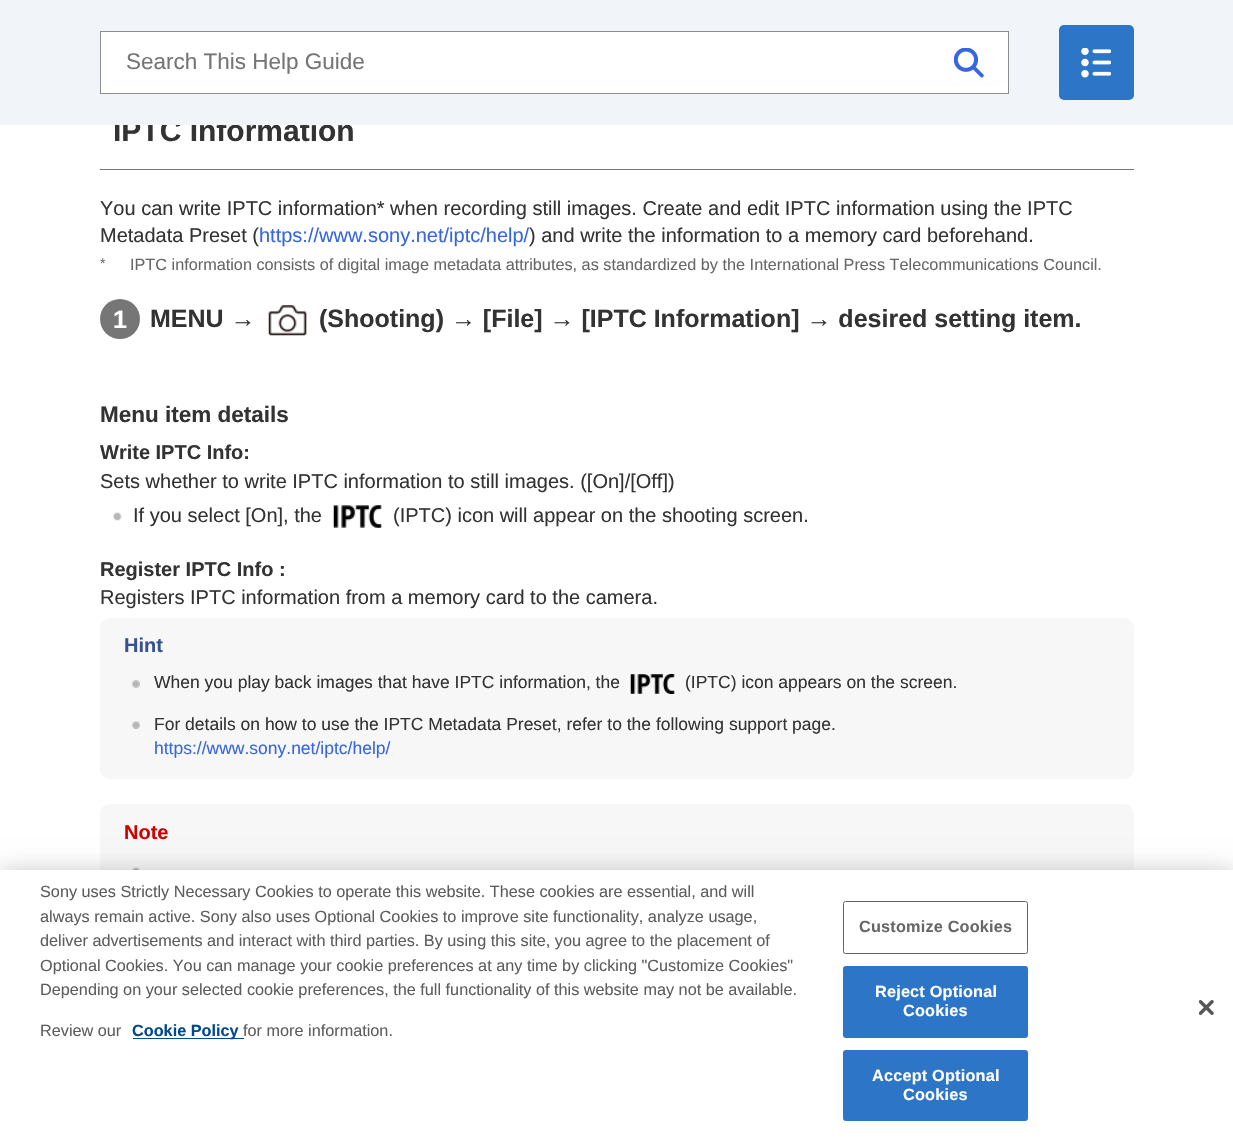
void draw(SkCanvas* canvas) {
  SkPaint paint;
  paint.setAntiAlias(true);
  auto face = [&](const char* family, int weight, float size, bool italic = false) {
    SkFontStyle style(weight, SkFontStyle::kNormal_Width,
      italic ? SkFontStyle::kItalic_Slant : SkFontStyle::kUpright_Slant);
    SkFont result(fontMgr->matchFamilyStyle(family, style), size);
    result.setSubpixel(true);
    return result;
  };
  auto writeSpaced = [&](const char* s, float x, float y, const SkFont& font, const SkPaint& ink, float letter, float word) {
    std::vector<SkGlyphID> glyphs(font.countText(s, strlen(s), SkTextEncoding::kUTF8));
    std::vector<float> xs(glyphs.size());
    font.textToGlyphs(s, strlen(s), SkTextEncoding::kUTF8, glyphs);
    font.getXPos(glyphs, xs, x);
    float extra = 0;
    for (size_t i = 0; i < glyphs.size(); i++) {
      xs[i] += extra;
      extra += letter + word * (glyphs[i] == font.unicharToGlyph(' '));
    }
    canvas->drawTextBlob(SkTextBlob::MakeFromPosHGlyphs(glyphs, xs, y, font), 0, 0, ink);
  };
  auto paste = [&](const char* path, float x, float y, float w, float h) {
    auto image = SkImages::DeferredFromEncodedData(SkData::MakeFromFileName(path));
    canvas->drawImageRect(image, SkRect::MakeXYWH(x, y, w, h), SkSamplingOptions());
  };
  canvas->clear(0xffffffff);
  paint.setColor(0xff767676);
  canvas->drawRect(SkRect::MakeXYWH(100, 169, 1034, 1), paint);
  canvas->drawCircle(120, 319, 20, paint);
  paste("img/3.png", 268, 305, 39, 31);
  paste("img/4.png", 113, 512, 9, 9);
  paste("img/5.png", 333, 505, 49, 23);
  paint.setColor(0xfff7f7f7);
  canvas->drawRoundRect(SkRect::MakeXYWH(100, 618, 1034, 161), 10, 10, paint);
  paste("img/6.png", 131, 680, 9, 8);
  paste("img/7.png", 630, 674, 45, 20);
  paste("img/8.png", 131, 721, 9, 8);
  canvas->drawRoundRect(SkRect::MakeXYWH(100, 804, 1034, 222), 10, 10, paint);
  paste("img/9.png", 132, 867, 8, 3);
  paint.setColor(0x33000000);
  paint.setMaskFilter(SkMaskFilter::MakeBlur(kNormal_SkBlurStyle, 11));
  canvas->drawRect(SkRect::MakeXYWH(0, 870, 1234, 276), paint);
  paint.setMaskFilter(nullptr);
  paint.setColor(0xffffffff);
  canvas->drawRect(SkRect::MakeXYWH(0, 870, 1233, 276), paint);
  paint.setColor(0xff01498e);
  canvas->drawRect(SkRect::MakeXYWH(133, 1038, 111, 1), paint);
  paint.setStroke(true);
  paint.setStrokeWidth(1);
  paint.setColor(0xff646464);
  canvas->drawRoundRect(SkRect::MakeXYWH(843.5f, 901.5f, 184, 52), 2, 2, paint);
  paint.setStroke(false);
  paint.setColor(0xff2d75c7);
  canvas->drawRoundRect(SkRect::MakeXYWH(843.5f, 966.5f, 184, 71), 2, 2, paint);
  paint.setStroke(true);
  canvas->drawRoundRect(SkRect::MakeXYWH(843.5f, 966.5f, 184, 71), 2, 2, paint);
  paint.setStroke(false);
  canvas->drawRoundRect(SkRect::MakeXYWH(843.5f, 1050.5f, 184, 70), 2, 2, paint);
  paint.setStroke(true);
  canvas->drawRoundRect(SkRect::MakeXYWH(843.5f, 1050.5f, 184, 70), 2, 2, paint);
  paste("img/10.png", 1199, 1000, 15, 15);
  auto f0 = face("Liberation Sans", 700, 30);
  paint.setStroke(false);
  paint.setColor(0xff333333);
  canvas->drawString("IPTC Information", 113, 141, f0, paint);
  paint.setColor(0xfff1f5f9);
  canvas->drawRect(SkRect::MakeXYWH(0, 0, 1233, 125), paint);
  paint.setColor(0xffffffff);
  canvas->drawRect(SkRect::MakeXYWH(100.5f, 31.5f, 908, 62), paint);
  paint.setStroke(true);
  paint.setColor(0xff8c8c8c);
  canvas->drawRect(SkRect::MakeXYWH(100.5f, 31.5f, 908, 62), paint);
  paste("img/1.png", 954, 48, 30, 30);
  auto f1 = face("Liberation Sans", 400, 22.5f);
  paint.setStroke(false);
  paint.setColor(0xff757575);
  canvas->drawString("Search This Help Guide", 126, 69, f1, paint);
  paint.setColor(0xff2d75c7);
  canvas->drawRoundRect(SkRect::MakeXYWH(1059, 25, 75, 75), 5, 5, paint);
  paste("img/2.png", 1081, 48, 30, 30);
  auto f2 = face("Liberation Sans", 400, 20);
  paint.setColor(0xff333333);
  canvas->drawString("You can write IPTC information* when recording still images. Create and edit IPTC information using the IPTC", 100, 215, f2, paint);
  canvas->drawString("Metadata Preset (", 100, 242, f2, paint);
  paint.setColor(0xff3865e0);
  canvas->drawString("https://www.sony.net/iptc/help/", 259, 242, f2, paint);
  paint.setColor(0xff333333);
  canvas->drawString(") and write the information to a memory card beforehand.", 529, 242, f2, paint);
  auto f3 = face("Liberation Sans", 400, 14);
  paint.setColor(0xff676767);
  canvas->drawString("*", 100, 268, f3, paint);
  auto f4 = face("Liberation Sans", 400, 16.25f);
  canvas->drawString("IPTC information consists of digital image metadata attributes, as standardized by the International Press Telecommunications Council.", 130, 270, f4, paint);
  auto f5 = face("Liberation Sans", 700, 25);
  paint.setColor(0xffffffff);
  canvas->drawString("1", 113, 328, f5, paint);
  paint.setColor(0xff333333);
  canvas->drawString("MENU →", 150, 327, f5, paint);
  canvas->drawString("(Shooting) → [File] → [IPTC Information] → desired setting item.", 319, 327, f5, paint);
  auto f6 = face("Liberation Sans", 700, 22.5f);
  canvas->drawString("Menu item details", 100, 422, f6, paint);
  auto f7 = face("Liberation Sans", 700, 20);
  canvas->drawString("Write IPTC Info:", 100, 459, f7, paint);
  {
    const struct { const char* s; float x, y; } items[] = {
      {"Sets whether to write IPTC information to still images. ([On]/[Off])", 100, 488},
      {"If you select [On], the", 133, 522},
      {"(IPTC) icon will appear on the shooting screen.", 393, 522},
    };
    for (auto [s, x, y] : items) {
      canvas->drawString(s, x, y, f2, paint);
    }
  }
  canvas->drawString("Register IPTC Info :", 100, 576, f7, paint);
  canvas->drawString("Registers IPTC information from a memory card to the camera.", 100, 604, f2, paint);
  paint.setColor(0xff38528d);
  canvas->drawString("Hint", 124, 652, f7, paint);
  auto f8 = face("Liberation Sans", 400, 17.5f);
  paint.setColor(0xff333333);
  {
    const struct { const char* s; float x, y; } items[] = {
      {"When you play back images that have IPTC information, the", 154, 688},
      {"(IPTC) icon appears on the screen.", 685, 688},
      {"For details on how to use the IPTC Metadata Preset, refer to the following support page.", 154, 730},
    };
    for (auto [s, x, y] : items) {
      canvas->drawString(s, x, y, f8, paint);
    }
  }
  paint.setColor(0xff3865e0);
  canvas->drawString("https://www.sony.net/iptc/help/", 154, 754, f8, paint);
  paint.setColor(0xffd10000);
  canvas->drawString("Note", 124, 839, f7, paint);
  paint.setColor(0xff5d5d5d);
  {
    const struct { const char* s; float x, y; } items[] = {
      {"Sony uses Strictly Necessary Cookies to operate this website. These cookies are essential, and will", 40, 897},
      {"always remain active. Sony also uses Optional Cookies to improve site functionality, analyze usage,", 40, 922},
      {"deliver advertisements and interact with third parties. By using this site, you agree to the placement of", 40, 946},
      {"Optional Cookies. You can manage your cookie preferences at any time by clicking \"Customize Cookies\"", 40, 971},
      {"Depending on your selected cookie preferences, the full functionality of this website may not be available.", 40, 995},
      {"Review our", 40, 1036},
    };
    for (auto [s, x, y] : items) {
      canvas->drawString(s, x, y, f4, paint);
    }
  }
  auto f9 = face("Liberation Sans", 700, 16.25f);
  paint.setColor(0xff01498e);
  canvas->drawString("Cookie Policy", 132, 1036, f9, paint);
  paint.setColor(0xff5d5d5d);
  canvas->drawString("for more information.", 243, 1036, f4, paint);
  paint.setColor(0xff676767);
  writeSpaced("Customize Cookies", 859, 932, f9, paint, 0.2f, 0);
  paint.setColor(0xffffffff);
  {
    const struct { const char* s; float x, y; } items[] = {
      {"Reject Optional", 875, 997},
      {"Cookies", 903, 1016},
      {"Accept Optional", 872, 1081},
      {"Cookies", 903, 1100},
    };
    for (auto [s, x, y] : items) {
      writeSpaced(s, x, y, f9, paint, 0.2f, 0);
    }
  }
}
